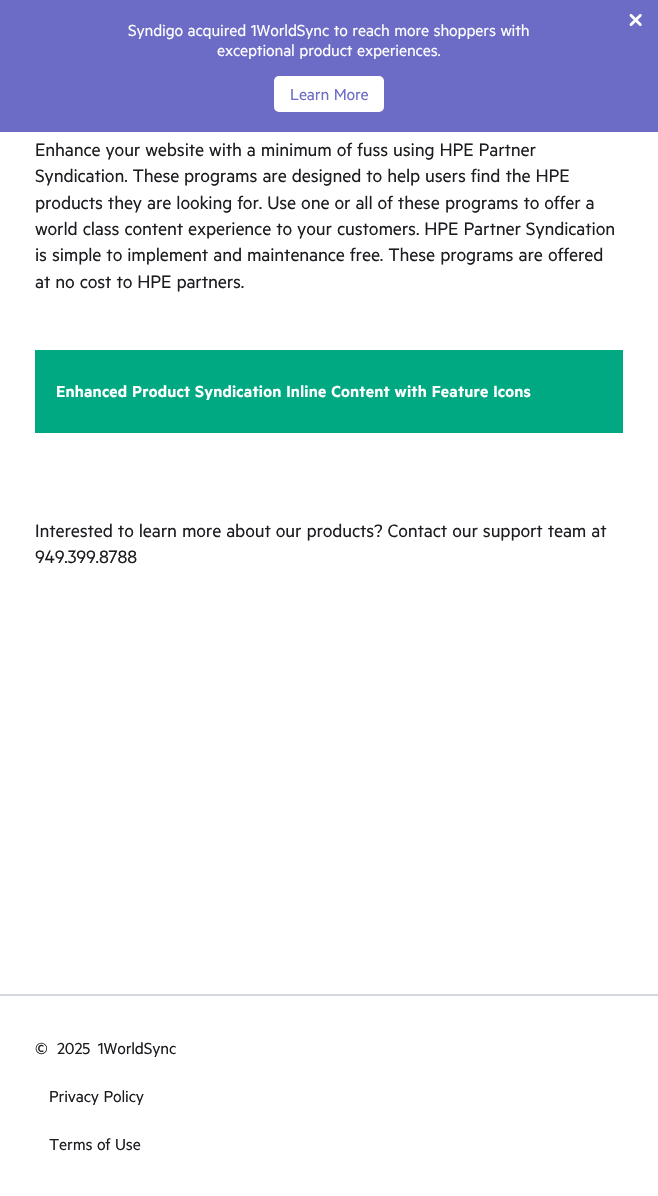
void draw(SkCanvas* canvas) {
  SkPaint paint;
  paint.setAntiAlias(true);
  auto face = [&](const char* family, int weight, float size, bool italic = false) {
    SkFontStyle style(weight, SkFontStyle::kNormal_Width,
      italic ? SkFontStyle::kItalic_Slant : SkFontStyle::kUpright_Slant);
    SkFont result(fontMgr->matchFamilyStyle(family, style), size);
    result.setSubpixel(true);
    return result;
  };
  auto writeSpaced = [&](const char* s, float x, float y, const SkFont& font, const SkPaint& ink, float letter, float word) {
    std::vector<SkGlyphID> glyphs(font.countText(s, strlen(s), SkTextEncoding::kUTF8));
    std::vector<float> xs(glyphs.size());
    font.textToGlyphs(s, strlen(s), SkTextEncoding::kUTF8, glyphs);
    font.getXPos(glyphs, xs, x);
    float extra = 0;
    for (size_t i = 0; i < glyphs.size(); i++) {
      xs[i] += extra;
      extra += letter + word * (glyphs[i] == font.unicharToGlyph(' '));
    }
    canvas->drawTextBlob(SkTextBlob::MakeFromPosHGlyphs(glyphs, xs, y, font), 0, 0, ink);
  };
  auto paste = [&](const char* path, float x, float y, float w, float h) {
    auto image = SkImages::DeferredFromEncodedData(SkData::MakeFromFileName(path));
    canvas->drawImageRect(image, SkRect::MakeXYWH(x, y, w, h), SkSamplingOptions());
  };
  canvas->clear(0xffffffff);
  paint.setColor(0xff6c6cc7);
  canvas->drawRect(SkRect::MakeXYWH(0, 0, 658, 132), paint);
  paste("img/1.png", 629, 14, 13, 13);
  paint.setColor(0xffffffff);
  canvas->drawRoundRect(SkRect::MakeXYWH(274, 76, 110, 36), 5, 5, paint);
  paint.setColor(0xff01a982);
  canvas->drawRect(SkRect::MakeXYWH(35, 350, 588, 83), paint);
  paint.setColor(0xffd3d7de);
  canvas->drawRect(SkRect::MakeXYWH(0, 994, 658, 2), paint);
  auto f0 = face("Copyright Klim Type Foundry", 400, 18);
  paint.setColor(0xffffffff);
  writeSpaced("Syndigo acquired 1WorldSync to reach more shoppers with", 128, 36, f0, paint, -0.15f, 0.75f);
  writeSpaced("exceptional product experiences.", 217, 56, f0, paint, -0.15f, 0.75f);
  paint.setColor(0xff6c6cc7);
  writeSpaced("Learn More", 290, 100, f0, paint, -0.15f, 0.75f);
  auto f1 = face("Copyright Klim Type Foundry", 400, 20.25f);
  paint.setColor(0xff1c1c21);
  {
    const struct { const char* s; float x, y; } items[] = {
      {"Enhance your website with a minimum of fuss using HPE Partner", 35, 156},
      {"Syndication. These", 35, 182},
      {"programs are designed to help users find the HPE", 184, 182},
      {"products they are looking for. Use one or all of these", 35, 209},
      {"programs to offer a", 445, 209},
      {"world class content experience to your", 35, 235},
      {"customers. HPE Partner Syndication", 337, 235},
      {"is simple to implement and maintenance free. These programs are", 35, 261},
    };
    for (auto [s, x, y] : items) {
      writeSpaced(s, x, y, f1, paint, -0.15f, 0.75f);
    }
  }
  writeSpaced("offered", 548, 261, f1, paint, -0.15f, 0);
  writeSpaced("at no cost to HPE partners.", 35, 288, f1, paint, -0.15f, 0.75f);
  auto f2 = face("Copyright Klim Type Foundry", 600, 18);
  paint.setColor(0xffffffff);
  writeSpaced("Enhanced Product Syndication Inline Content with Feature Icons", 56, 397, f2, paint, 0.18f, 0.75f);
  paint.setColor(0xff1c1c21);
  writeSpaced("Interested to learn more about our products? Contact our support team at", 35, 537, f1, paint, -0.15f, 0.75f);
  writeSpaced("949.399.8788", 35, 563, f1, paint, -0.15f, 0);
  writeSpaced("©", 35, 1054, f0, paint, -0.15f, 0);
  writeSpaced("2025  1WorldSync", 57, 1054, f0, paint, -0.15f, 0);
  writeSpaced("Privacy Policy", 49, 1102, f0, paint, -0.15f, 0.75f);
  writeSpaced("Terms of Use", 49, 1150, f0, paint, -0.15f, 0.75f);
}
